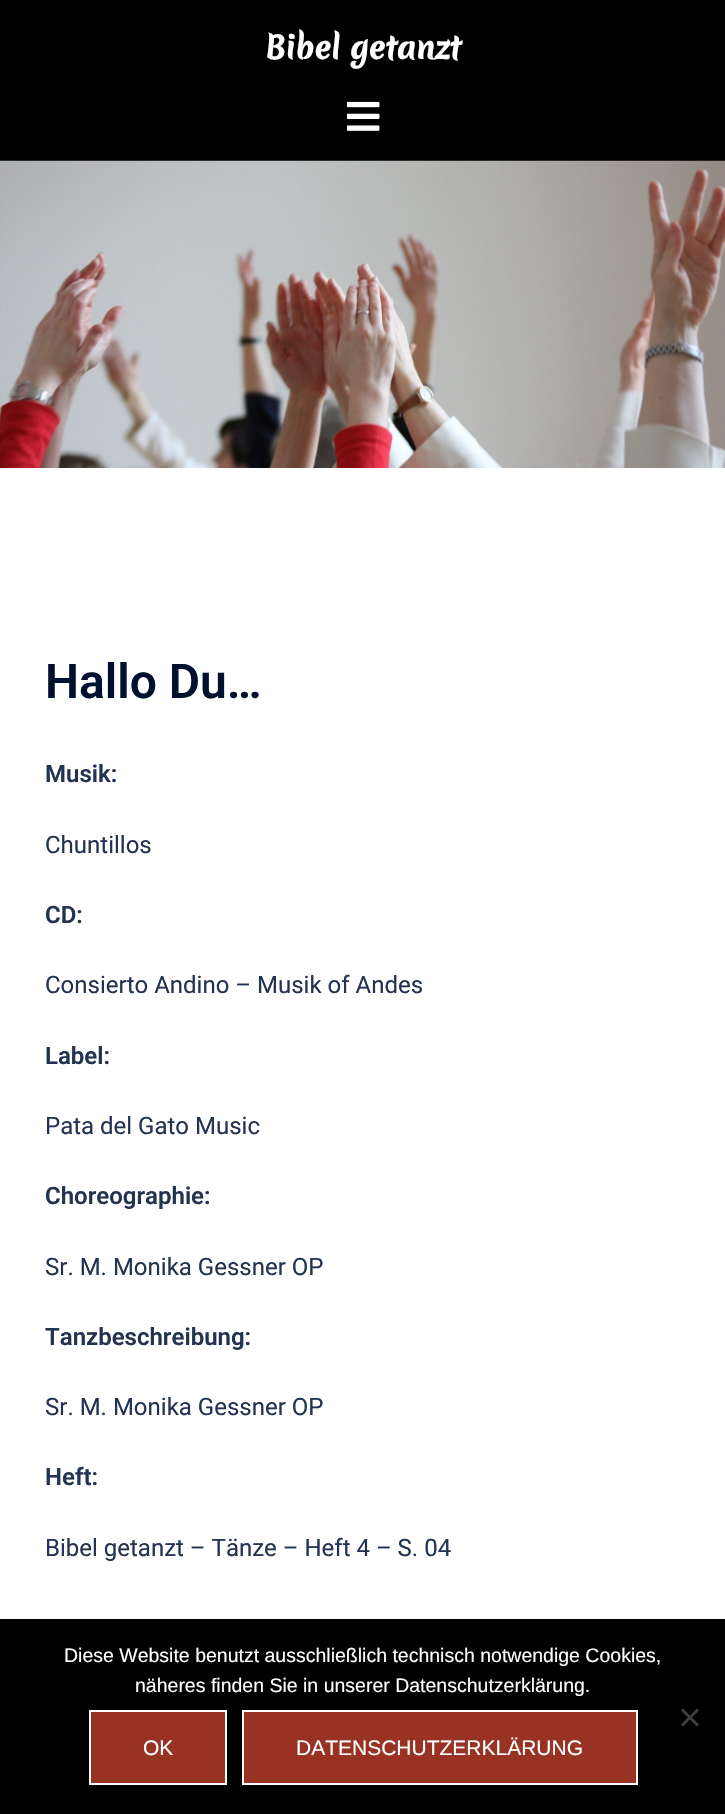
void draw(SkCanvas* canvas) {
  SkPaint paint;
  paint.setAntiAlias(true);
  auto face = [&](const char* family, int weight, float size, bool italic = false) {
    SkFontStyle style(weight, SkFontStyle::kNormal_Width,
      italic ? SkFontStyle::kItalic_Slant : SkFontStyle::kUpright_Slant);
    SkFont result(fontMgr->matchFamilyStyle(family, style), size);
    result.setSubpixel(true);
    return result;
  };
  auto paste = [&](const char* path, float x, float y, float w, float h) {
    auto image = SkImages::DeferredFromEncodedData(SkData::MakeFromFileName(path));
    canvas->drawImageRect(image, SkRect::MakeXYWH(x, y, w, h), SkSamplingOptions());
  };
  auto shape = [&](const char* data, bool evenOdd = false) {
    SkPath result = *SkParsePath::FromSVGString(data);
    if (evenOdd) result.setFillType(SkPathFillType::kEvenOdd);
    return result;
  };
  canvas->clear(0xffffffff);
  paint.setColor(0xff000000);
  canvas->drawRect(SkRect::MakeXYWH(0, 0, 725, 161), paint);
  paste("img/1.png", 347, 101, 33, 30);
  paste("img/2.png", 0, 160, 725, 308);
  canvas->drawRect(SkRect::MakeXYWH(0, 1619, 725, 195), paint);
  paint.setColor(0xff404040);
  canvas->drawPath(shape("M697 1708.5L699 1710.5L683 1726.5L681 1724.5Z"), paint);
  canvas->drawPath(shape("M681 1710.5L683 1708.5L699 1724.5L697 1726.5Z"), paint);
  paint.setColor(0xff983222);
  canvas->drawRect(SkRect::MakeXYWH(90, 1711, 136, 73), paint);
  paint.setStroke(true);
  paint.setStrokeWidth(2);
  paint.setColor(0xffffffff);
  canvas->drawRect(SkRect::MakeXYWH(90, 1711, 136, 73), paint);
  paint.setStroke(false);
  paint.setColor(0xff983222);
  canvas->drawRect(SkRect::MakeXYWH(243, 1711, 394, 73), paint);
  paint.setStroke(true);
  paint.setColor(0xffffffff);
  canvas->drawRect(SkRect::MakeXYWH(243, 1711, 394, 73), paint);
  auto f0 = face("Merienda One", 700, 30);
  paint.setStroke(false);
  canvas->drawString("Bibel getanzt", 265, 59, f0, paint);
  auto f1 = face("Roboto", 600, 48);
  paint.setColor(0xff00102e);
  canvas->drawString("Hallo Du…", 45, 698, f1, paint);
  auto f2 = face("Roboto", 600, 24);
  paint.setColor(0xff233452);
  canvas->drawString("Musik:", 45, 782, f2, paint);
  auto f3 = face("Roboto", 400, 24);
  canvas->drawString("Chuntillos", 45, 853, f3, paint);
  canvas->drawString("CD:", 45, 923, f2, paint);
  canvas->drawString("Consierto Andino – Musik of Andes", 45, 993, f3, paint);
  canvas->drawString("Label:", 45, 1064, f2, paint);
  canvas->drawString("Pata del Gato Music", 45, 1134, f3, paint);
  canvas->drawString("Choreographie:", 45, 1204, f2, paint);
  canvas->drawString("Sr. M. Monika Gessner OP", 45, 1275, f3, paint);
  canvas->drawString("Tanzbeschreibung:", 45, 1345, f2, paint);
  canvas->drawString("Sr. M. Monika Gessner OP", 45, 1415, f3, paint);
  canvas->drawString("Heft:", 45, 1485, f2, paint);
  canvas->drawString("Bibel getanzt – Tänze – Heft 4 – S. 04", 45, 1556, f3, paint);
  auto f4 = face("Liberation Sans", 400, 19.5f);
  paint.setColor(0xffffffff);
  canvas->drawString("Diese Website benutzt ausschließlich technisch notwendige Cookies,", 64, 1662, f4, paint);
  canvas->drawString("näheres finden Sie in unserer Datenschutzerklärung.", 135, 1692, f4, paint);
  auto f5 = face("Liberation Sans", 400, 21);
  canvas->drawString("OK", 143, 1755, f5, paint);
  canvas->drawString("DATENSCHUTZERKLÄRUNG", 296, 1755, f5, paint);
}
